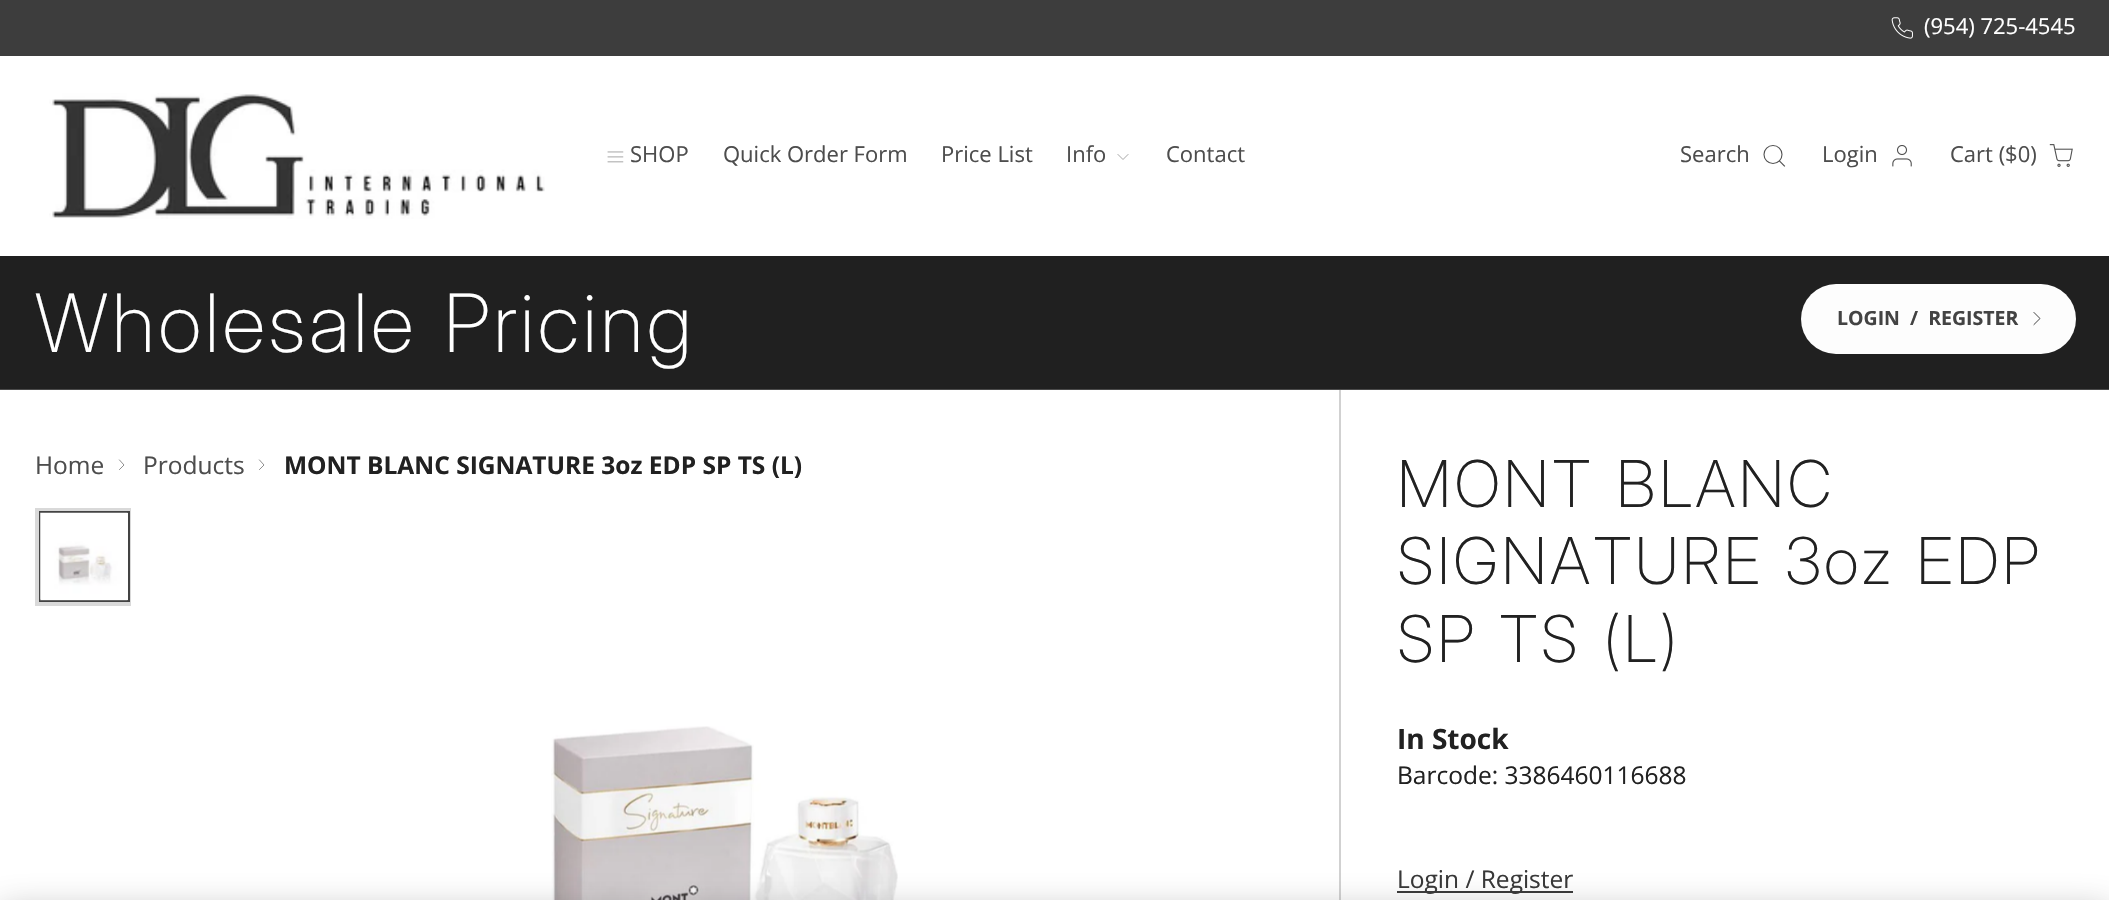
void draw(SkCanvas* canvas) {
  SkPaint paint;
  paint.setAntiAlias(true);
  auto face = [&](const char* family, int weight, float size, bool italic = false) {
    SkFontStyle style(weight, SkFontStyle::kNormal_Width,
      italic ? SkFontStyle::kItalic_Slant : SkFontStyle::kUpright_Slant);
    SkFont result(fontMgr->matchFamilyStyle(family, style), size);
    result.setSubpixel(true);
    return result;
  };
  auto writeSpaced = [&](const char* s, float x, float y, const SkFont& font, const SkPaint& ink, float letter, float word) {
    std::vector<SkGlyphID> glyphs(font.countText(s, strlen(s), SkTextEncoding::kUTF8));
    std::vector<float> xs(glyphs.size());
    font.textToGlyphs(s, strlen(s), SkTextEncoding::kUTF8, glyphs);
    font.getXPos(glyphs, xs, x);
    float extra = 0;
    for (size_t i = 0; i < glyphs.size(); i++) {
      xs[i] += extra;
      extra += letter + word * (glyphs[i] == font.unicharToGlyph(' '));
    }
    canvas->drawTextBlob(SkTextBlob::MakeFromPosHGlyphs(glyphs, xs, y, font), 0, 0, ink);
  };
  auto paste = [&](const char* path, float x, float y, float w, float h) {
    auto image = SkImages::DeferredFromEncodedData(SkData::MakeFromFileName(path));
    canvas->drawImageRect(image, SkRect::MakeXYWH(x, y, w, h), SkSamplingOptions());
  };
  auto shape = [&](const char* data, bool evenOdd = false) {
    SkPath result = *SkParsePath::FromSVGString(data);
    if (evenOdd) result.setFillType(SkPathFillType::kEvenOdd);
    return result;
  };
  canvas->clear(0xff202020);
  paint.setColor(0xff3d3d3d);
  canvas->drawRect(SkRect::MakeXYWH(0, 0, 2109, 56), paint);
  paste("img/1.png", 1891, 17, 22, 22);
  paint.setColor(0xffffffff);
  canvas->drawRect(SkRect::MakeXYWH(0, 56, 2109, 200), paint);
  paste("img/2.png", 49, 93, 496, 126);
  paste("img/3.png", 607, 151, 17, 12);
  paint.setStroke(true);
  paint.setStrokeWidth(0.8f);
  paint.setStrokeCap(SkPaint::kSquare_Cap);
  paint.setColor(0xff8f8f8f);
  canvas->drawPath(shape("M1118 154.5L1123 159.5L1128 154.5"), paint);
  paint.setStrokeWidth(1.1f);
  paint.setStrokeCap(SkPaint::kButt_Cap);
  paint.setColor(0xff505050);
  canvas->drawCircle(1773, 154.5f, 9, paint);
  paint.setStrokeCap(SkPaint::kSquare_Cap);
  canvas->drawPath(shape("M1784.5 166L1779.5 161"), paint);
  paste("img/4.png", 1892, 145, 20, 22);
  paste("img/5.png", 2049, 144, 24, 23);
  paint.setStroke(false);
  paint.setColor(0xfffdfdfd);
  canvas->drawRoundRect(SkRect::MakeXYWH(1801, 284, 275, 70), 35, 35, paint);
  paint.setStroke(true);
  paint.setStrokeWidth(1);
  paint.setColor(0xff434343);
  canvas->drawPath(shape("M2034 324.5L2040 318.5L2034 312.5"), paint);
  paint.setStrokeWidth(2);
  paint.setStrokeCap(SkPaint::kButt_Cap);
  paint.setColor(0xcc545454);
  canvas->drawRect(SkRect::MakeXYWH(-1, 390, 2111, 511), paint);
  paint.setStroke(false);
  paint.setColor(0xffffffff);
  canvas->drawRect(SkRect::MakeXYWH(0, 390, 2109, 510), paint);
  paint.setColor(0xffd1d1d1);
  canvas->drawRect(SkRect::MakeXYWH(1339, 390, 2, 510), paint);
  paint.setStroke(true);
  paint.setStrokeWidth(0.8f);
  paint.setStrokeCap(SkPaint::kSquare_Cap);
  paint.setColor(0xff717171);
  canvas->drawPath(shape("M119.5 469.5L124 465L119.5 460"), paint);
  canvas->drawPath(shape("M259.5 469.5L264 465L259.5 460"), paint);
  canvas->save();
  canvas->clipRect(SkRect::MakeXYWH(35, 508, 96, 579));
  paint.setStrokeWidth(4);
  paint.setStrokeCap(SkPaint::kButt_Cap);
  paint.setColor(0xffd9d9d9);
  canvas->drawRect(SkRect::MakeXYWH(37, 510, 94, 94), paint);
  canvas->restore();
  paint.setStrokeWidth(2);
  paint.setColor(0xff434343);
  canvas->drawRect(SkRect::MakeXYWH(40, 512, 89, 89), paint);
  paste("img/6.png", 40, 512, 88, 89);
  paste("img/7.png", 551, 726, 347, 174);
  paint.setStroke(false);
  paint.setColor(0xff383838);
  canvas->drawRect(SkRect::MakeXYWH(1397, 891, 176, 2), paint);
  paint.setColor(0x66545454);
  paint.setMaskFilter(SkMaskFilter::MakeBlur(kNormal_SkBlurStyle, 17.5f));
  canvas->drawRect(SkRect::MakeXYWH(0, 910, 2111, 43), paint);
  paint.setMaskFilter(nullptr);
  auto f0 = face("Open Sans", 400, 22);
  paint.setColor(0xffffffff);
  canvas->drawString("(954) 725-4545", 1924, 34, f0, paint);
  paint.setColor(0xff4d4d4d);
  {
    const struct { const char* s; float x, y; } items[] = {
      {"SHOP", 630, 162},
      {"Quick Order Form", 723, 162},
      {"Price List", 941, 162},
      {"Info", 1066, 162},
      {"Contact", 1166, 162},
      {"Search", 1680, 162},
      {"Login", 1822, 162},
      {"Cart ($0)", 1950, 162},
    };
    for (auto [s, x, y] : items) {
      canvas->drawString(s, x, y, f0, paint);
    }
  }
  auto f1 = face("Inter", 200, 80.5f);
  paint.setColor(0xffffffff);
  writeSpaced("Wholesale Pricing", 35, 352, f1, paint, 4, 4);
  auto f2 = face("Open Sans", 700, 19.5f);
  paint.setColor(0xff434343);
  writeSpaced("LOGIN / REGISTER", 1837, 325, f2, paint, 0, 5);
  auto f3 = face("Open Sans", 400, 24.5f);
  paint.setColor(0xff4d4d4d);
  canvas->drawString("Home", 35, 474, f3, paint);
  canvas->drawString("Products", 143, 474, f3, paint);
  auto f4 = face("Open Sans", 700, 24.5f);
  paint.setColor(0xff212121);
  canvas->drawString("MONT BLANC SIGNATURE 3oz EDP SP TS (L)", 284, 474, f4, paint);
  auto f5 = face("Inter", 200, 64.5f);
  {
    const struct { const char* s; float x, y; } items[] = {
      {"MONT BLANC", 1397, 507},
      {"SIGNATURE 3oz EDP", 1397, 584},
      {"SP TS (L)", 1397, 662},
    };
    for (auto [s, x, y] : items) {
      writeSpaced(s, x, y, f5, paint, 3.25f, 4);
    }
  }
  auto f6 = face("Open Sans", 700, 28);
  canvas->drawString("In Stock", 1397, 749, f6, paint);
  canvas->drawString("Barcode: 3386460116688", 1397, 784, f3, paint);
  paint.setColor(0xff383838);
  canvas->drawString("Login / Register", 1397, 888, f3, paint);
}
